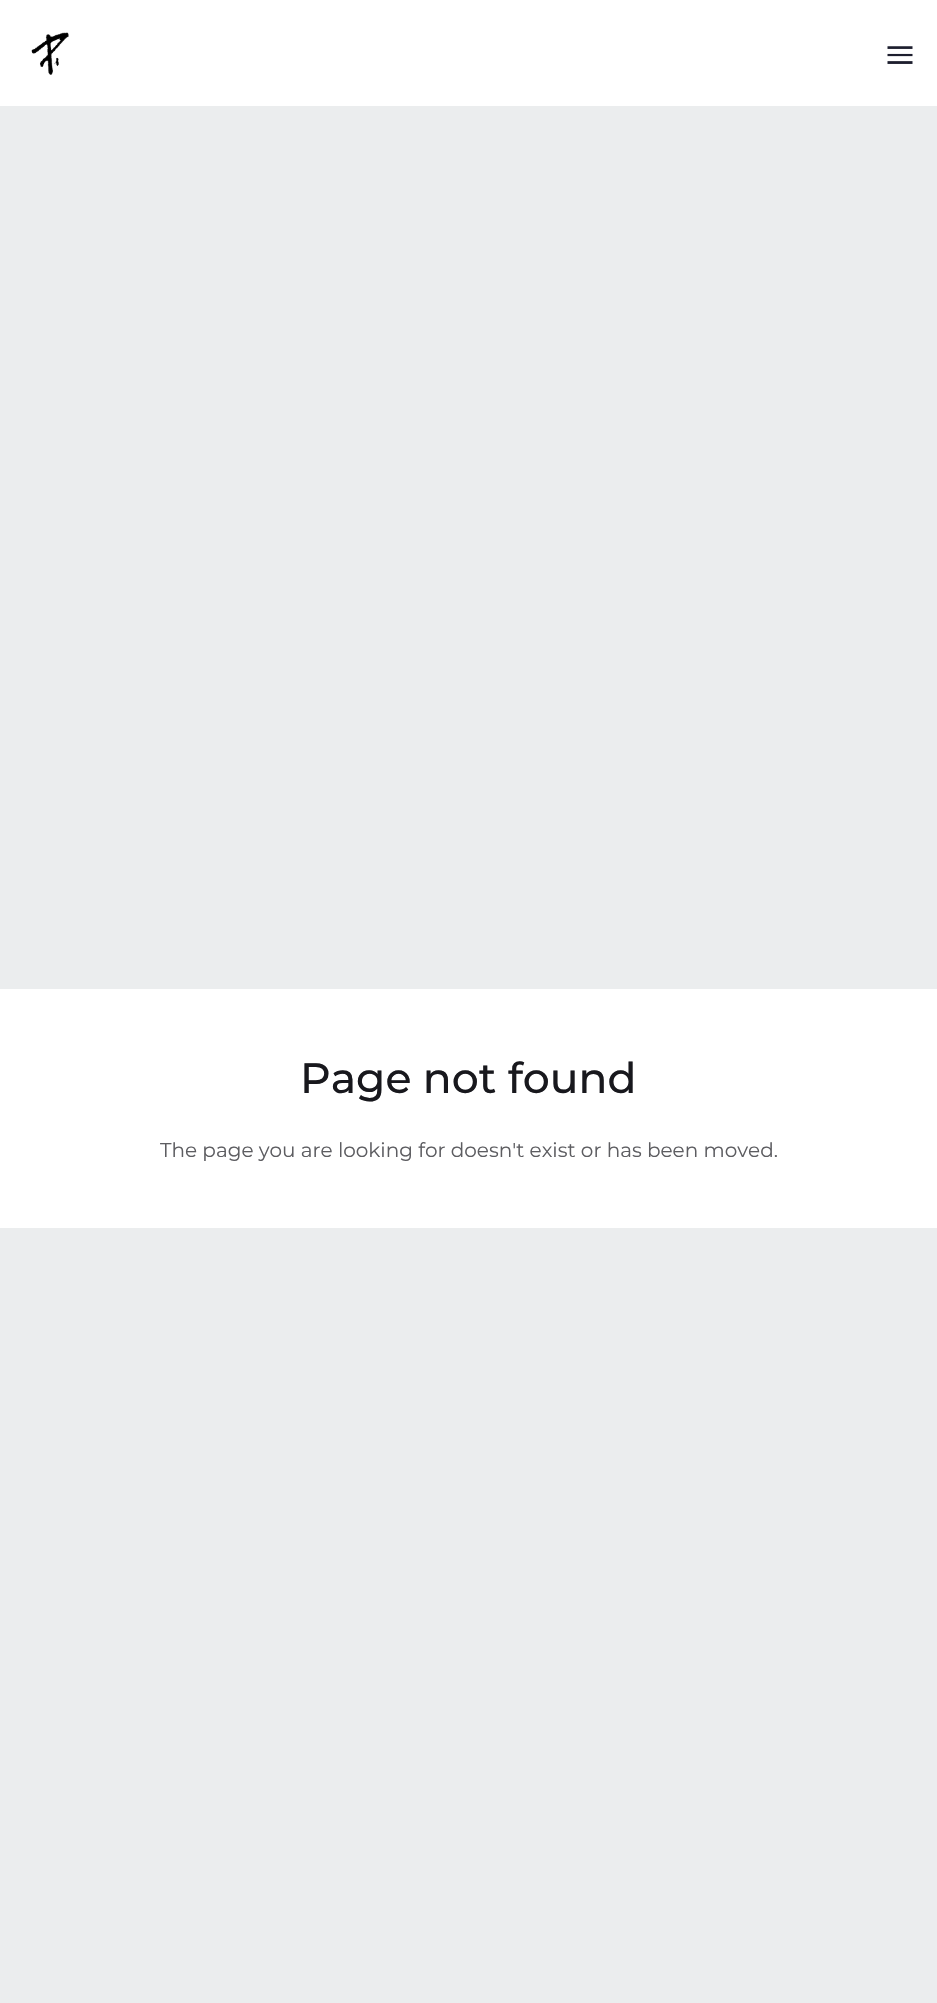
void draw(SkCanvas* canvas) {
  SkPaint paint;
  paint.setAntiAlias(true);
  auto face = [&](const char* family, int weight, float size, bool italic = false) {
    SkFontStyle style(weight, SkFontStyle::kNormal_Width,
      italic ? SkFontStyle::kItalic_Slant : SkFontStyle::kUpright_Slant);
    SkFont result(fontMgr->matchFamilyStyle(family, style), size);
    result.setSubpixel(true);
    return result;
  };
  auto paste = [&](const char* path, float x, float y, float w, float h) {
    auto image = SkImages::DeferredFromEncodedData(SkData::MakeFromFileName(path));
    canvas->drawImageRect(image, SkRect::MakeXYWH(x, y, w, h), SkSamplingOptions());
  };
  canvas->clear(0xffebedee);
  paint.setColor(0xffffffff);
  canvas->drawRect(SkRect::MakeXYWH(0, 0, 937, 106), paint);
  paste("img/1.png", 31, 32, 38, 43);
  paste("img/2.png", 887, 46, 26, 18);
  canvas->drawRect(SkRect::MakeXYWH(0, 989, 937, 239), paint);
  auto f0 = face("Montserrat", 500, 42.5f);
  paint.setColor(0xff18181d);
  canvas->drawString("Page not found", 300, 1093, f0, paint);
  auto f1 = face("Montserrat", 400, 20);
  paint.setColor(0xff5d5d61);
  canvas->drawString("The page you are looking for doesn't exist or has been moved.", 160, 1157, f1, paint);
}
